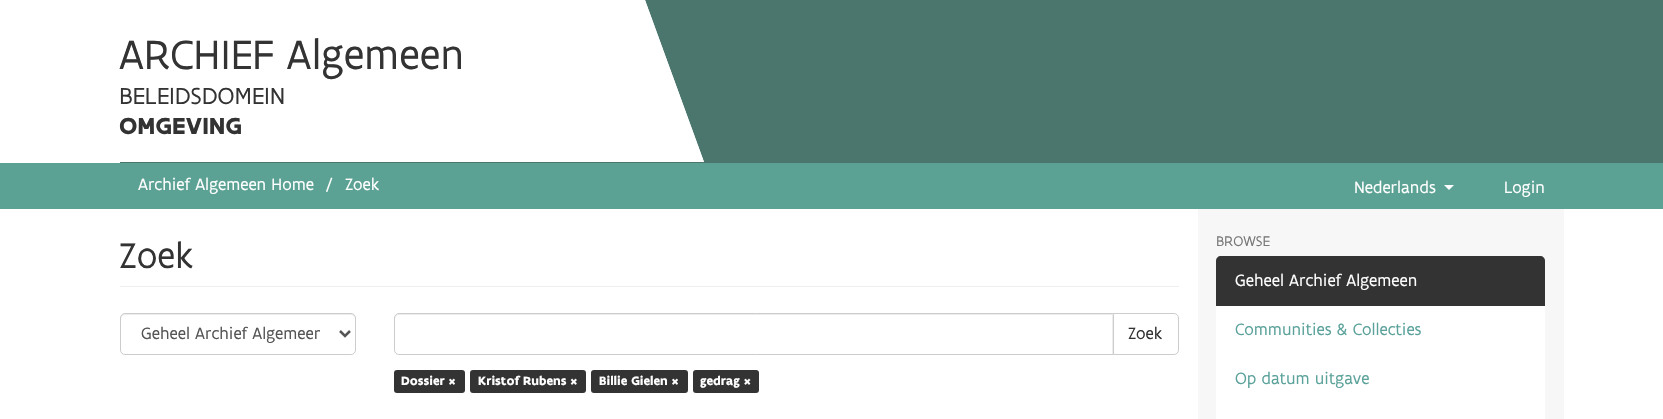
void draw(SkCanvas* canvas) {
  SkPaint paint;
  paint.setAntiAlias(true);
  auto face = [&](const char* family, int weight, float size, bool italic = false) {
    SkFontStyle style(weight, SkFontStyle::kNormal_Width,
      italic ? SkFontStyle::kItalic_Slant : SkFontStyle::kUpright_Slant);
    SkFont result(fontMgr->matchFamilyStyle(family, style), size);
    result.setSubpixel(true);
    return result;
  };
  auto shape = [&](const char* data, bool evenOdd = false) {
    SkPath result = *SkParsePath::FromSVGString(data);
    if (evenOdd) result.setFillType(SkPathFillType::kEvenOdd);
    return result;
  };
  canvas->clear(0xffffffff);
  paint.setColor(0xff4a766d);
  canvas->drawRect(SkRect::MakeXYWH(120, 0, 1543, 163), paint);
  paint.setColor(0xffffffff);
  canvas->drawPath(shape("M-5 0H645L704 162H54Z"), paint);
  canvas->drawPath(shape("M120 0V162H704L645 0Z"), paint);
  paint.setColor(0xff5ba294);
  canvas->drawRect(SkRect::MakeXYWH(0, 163, 1663, 46), paint);
  paint.setColor(0xffffffff);
  canvas->drawPath(shape("M1444 185H1454L1449 190Z"), paint);
  paint.setColor(0xfff7f7f7);
  canvas->drawRect(SkRect::MakeXYWH(1198, 209, 366, 210), paint);
  paint.setColor(0xffeeeeee);
  canvas->drawRect(SkRect::MakeXYWH(120, 286, 1059, 1), paint);
  paint.setColor(0xffececec);
  canvas->drawPath(shape("M125 315H351C353 315 355 317 355 319C355 316 354 314 351 314H125C122 314 121 316 121 319C121 317 123 315 125 315Z"), paint);
  paint.setStroke(true);
  paint.setStrokeWidth(1);
  paint.setColor(0xffcccccc);
  canvas->drawRoundRect(SkRect::MakeXYWH(120.5f, 313.5f, 235, 41), 4.5f, 4.5f, paint);
  paint.setStrokeWidth(2.5f);
  paint.setColor(0xff555555);
  canvas->drawPath(shape("M340 331L345 336L350 331"), paint);
  paint.setStrokeWidth(1);
  paint.setColor(0xffcccccc);
  canvas->drawPath(shape("M1113.5 313.5H1174C1176.5 313.5 1178.5 315.5 1178.5 318V350C1178.5 352.5 1176.5 354.5 1174 354.5H1113.5Z"), paint);
  paint.setStroke(false);
  paint.setColor(0xffffffff);
  canvas->drawPath(shape("M399 313H1114V355H399C396 355 394 353 394 350V318C394 315 396 313 399 313Z"), paint);
  paint.setColor(0xffececec);
  canvas->drawPath(shape("M399 315H1112V354H1113V314H399C397 314 395 316 395 318V319C395 317 397 315 399 315Z"), paint);
  paint.setStroke(true);
  paint.setColor(0xffcccccc);
  canvas->drawPath(shape("M399 313.5H1113.5V354.5H399C396.5 354.5 394.5 352.5 394.5 350V318C394.5 315.5 396.5 313.5 399 313.5Z"), paint);
  paint.setStroke(false);
  paint.setColor(0xff333333);
  canvas->drawRoundRect(SkRect::MakeXYWH(394, 370, 71, 23), 3, 3, paint);
  canvas->drawRoundRect(SkRect::MakeXYWH(470, 370, 116, 23), 3, 3, paint);
  canvas->drawRoundRect(SkRect::MakeXYWH(591, 370, 97, 23), 3, 3, paint);
  canvas->drawRoundRect(SkRect::MakeXYWH(693, 370, 66, 23), 3, 3, paint);
  canvas->drawPath(shape("M1221 256H1540C1543 256 1545 258 1545 261V306H1216V261C1216 258 1218 256 1221 256Z"), paint);
  paint.setColor(0xffffffff);
  canvas->drawRect(SkRect::MakeXYWH(1216, 306, 329, 113), paint);
  auto f0 = face("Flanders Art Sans", 400, 43.75f);
  paint.setColor(0xff333333);
  canvas->drawString("ARCHIEF Algemeen", 119, 69, f0, paint);
  auto f1 = face("Flanders Art Sans", 400, 25);
  canvas->drawString("BELEIDSDOMEIN", 119, 104, f1, paint);
  auto f2 = face("Flanders Art Sans", 700, 25);
  canvas->drawString("OMGEVING", 119, 134, f2, paint);
  auto f3 = face("Flanders Art Sans", 400, 17.5f);
  paint.setColor(0xffffffff);
  {
    const struct { const char* s; float x, y; } items[] = {
      {"Archief Algemeen Home", 138, 190},
      {"/", 325, 190},
      {"Zoek", 345, 190},
      {"Nederlands", 1354, 193},
      {"Login", 1504, 193},
    };
    for (auto [s, x, y] : items) {
      canvas->drawString(s, x, y, f3, paint);
    }
  }
  auto f4 = face("Flanders Art Sans", 400, 38);
  paint.setColor(0xff333333);
  canvas->drawString("Zoek", 119, 268, f4, paint);
  canvas->save();
  canvas->clipRect(SkRect::MakeXYWH(141, 323, 179, 23));
  paint.setColor(0xff555555);
  canvas->drawString("Geheel Archief Algemeen", 141, 339, f3, paint);
  canvas->restore();
  paint.setColor(0xff333333);
  canvas->drawString("Zoek", 1128, 339, f3, paint);
  auto f5 = face("Flanders Art Sans", 700, 13);
  paint.setColor(0xffffffff);
  {
    const struct { const char* s; float x, y; } items[] = {
      {"Dossier ×", 401, 385},
      {"Kristof Rubens ×", 478, 385},
      {"Billie Gielen ×", 599, 385},
      {"gedrag ×", 700, 385},
    };
    for (auto [s, x, y] : items) {
      canvas->drawString(s, x, y, f5, paint);
    }
  }
  auto f6 = face("Flanders Art Sans", 400, 15);
  paint.setColor(0xff777777);
  canvas->drawString("BROWSE", 1216, 246, f6, paint);
  paint.setColor(0xffffffff);
  canvas->drawString("Geheel Archief Algemeen", 1235, 286, f3, paint);
  paint.setColor(0xff5ba29b);
  canvas->drawString("Communities & Collecties", 1235, 335, f3, paint);
  canvas->drawString("Op datum uitgave", 1235, 384, f3, paint);
}
